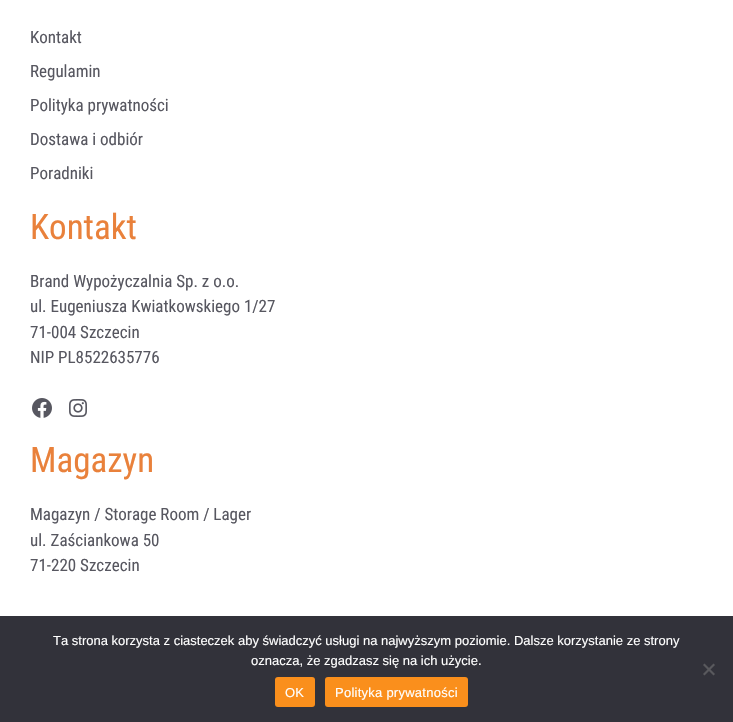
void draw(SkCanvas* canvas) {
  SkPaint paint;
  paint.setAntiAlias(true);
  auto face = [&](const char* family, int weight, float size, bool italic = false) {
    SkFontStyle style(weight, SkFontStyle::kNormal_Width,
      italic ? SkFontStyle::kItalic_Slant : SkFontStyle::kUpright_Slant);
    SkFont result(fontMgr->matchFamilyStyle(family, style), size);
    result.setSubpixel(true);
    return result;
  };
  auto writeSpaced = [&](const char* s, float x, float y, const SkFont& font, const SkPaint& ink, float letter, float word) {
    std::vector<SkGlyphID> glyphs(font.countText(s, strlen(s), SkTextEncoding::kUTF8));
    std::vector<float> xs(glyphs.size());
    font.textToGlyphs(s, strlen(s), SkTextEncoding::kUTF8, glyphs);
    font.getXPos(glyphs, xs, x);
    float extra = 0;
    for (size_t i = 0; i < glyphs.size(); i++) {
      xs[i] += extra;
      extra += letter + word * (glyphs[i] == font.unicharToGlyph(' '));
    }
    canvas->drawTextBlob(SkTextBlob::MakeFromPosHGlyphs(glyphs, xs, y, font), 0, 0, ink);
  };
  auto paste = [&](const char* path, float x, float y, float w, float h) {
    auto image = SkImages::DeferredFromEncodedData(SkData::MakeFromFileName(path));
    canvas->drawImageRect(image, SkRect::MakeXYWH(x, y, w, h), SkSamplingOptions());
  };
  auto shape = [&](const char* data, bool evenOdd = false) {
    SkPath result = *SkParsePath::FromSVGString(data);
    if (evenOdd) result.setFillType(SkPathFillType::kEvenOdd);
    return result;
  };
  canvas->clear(0xffffffff);
  paste("img/1.png", 32, 398, 20, 20);
  paste("img/2.png", 69, 399, 18, 18);
  paint.setColor(0xff32323a);
  canvas->drawRect(SkRect::MakeXYWH(0, 616, 733, 106), paint);
  paint.setColor(0xff59595d);
  canvas->drawPath(shape("M713.5 663.5L715 665L704.5 675.5L703 674Z"), paint);
  canvas->drawPath(shape("M703 665L704.5 663.5L715 674L713.5 675.5Z"), paint);
  paint.setColor(0xfffa8f1c);
  canvas->drawRoundRect(SkRect::MakeXYWH(275, 677, 40, 30), 3, 3, paint);
  canvas->drawRoundRect(SkRect::MakeXYWH(325, 677, 143, 30), 3, 3, paint);
  auto f0 = face("Roboto Condensed", 400, 17);
  paint.setColor(0xff575760);
  {
    const struct { const char* s; float x, y; } items[] = {
      {"Kontakt", 30, 43},
      {"Regulamin", 30, 77},
      {"Polityka prywatności", 30, 111},
      {"Dostawa i odbiór", 30, 145},
      {"Poradniki", 30, 179},
    };
    for (auto [s, x, y] : items) {
      canvas->drawString(s, x, y, f0, paint);
    }
  }
  auto f1 = face("Roboto Condensed", 400, 35);
  paint.setColor(0xffe9813b);
  canvas->drawString("Kontakt", 30, 239, f1, paint);
  paint.setColor(0xff575760);
  {
    const struct { const char* s; float x, y; } items[] = {
      {"Brand Wypożyczalnia Sp. z o.o.", 30, 287},
      {"ul. Eugeniusza Kwiatkowskiego 1/27", 30, 312},
      {"71-004 Szczecin", 30, 338},
      {"NIP PL8522635776", 30, 363},
    };
    for (auto [s, x, y] : items) {
      canvas->drawString(s, x, y, f0, paint);
    }
  }
  paint.setColor(0xffe9813b);
  canvas->drawString("Magazyn", 30, 472, f1, paint);
  paint.setColor(0xff575760);
  {
    const struct { const char* s; float x, y; } items[] = {
      {"Magazyn / Storage Room / Lager", 30, 520},
      {"ul. Zaściankowa 50", 30, 546},
      {"71-220 Szczecin", 30, 571},
    };
    for (auto [s, x, y] : items) {
      canvas->drawString(s, x, y, f0, paint);
    }
  }
  auto f2 = face("Liberation Sans", 400, 13);
  paint.setColor(0xffffffff);
  canvas->drawString("Ta strona korzysta z ciasteczek aby świadczyć usługi na najwyższym poziomie. Dalsze korzystanie ze strony", 53, 645, f2, paint);
  canvas->drawString("oznacza, że zgadzasz się na ich użycie.", 251, 665, f2, paint);
  writeSpaced("OK", 285, 697, f2, paint, 0.25f, 0);
  writeSpaced("Polityka prywatności", 335, 697, f2, paint, 0.25f, 0);
}
